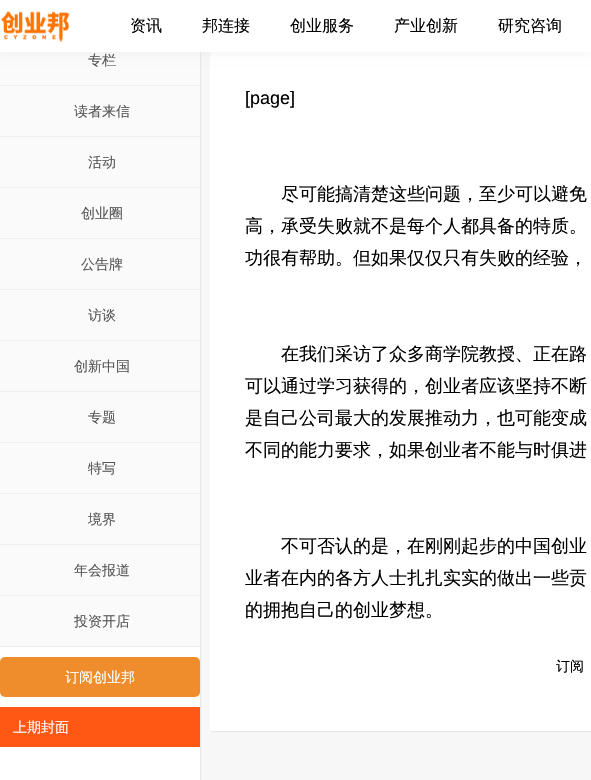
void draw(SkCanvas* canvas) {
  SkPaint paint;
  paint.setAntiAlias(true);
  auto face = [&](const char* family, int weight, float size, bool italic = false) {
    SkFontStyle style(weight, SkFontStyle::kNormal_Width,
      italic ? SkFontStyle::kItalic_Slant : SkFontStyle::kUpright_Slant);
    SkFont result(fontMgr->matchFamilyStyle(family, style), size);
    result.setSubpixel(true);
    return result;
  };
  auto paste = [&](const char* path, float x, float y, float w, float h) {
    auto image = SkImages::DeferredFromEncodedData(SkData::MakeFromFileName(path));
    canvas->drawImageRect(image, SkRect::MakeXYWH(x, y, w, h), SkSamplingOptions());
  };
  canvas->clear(0xfff7f7f7);
  paint.setColor(0xffe7e7e7);
  paint.setMaskFilter(SkMaskFilter::MakeBlur(kNormal_SkBlurStyle, 0.5f));
  canvas->drawRect(SkRect::MakeXYWH(1, -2, 200, 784), paint);
  paint.setMaskFilter(nullptr);
  paint.setColor(0xfffafafa);
  canvas->drawRect(SkRect::MakeXYWH(0, 52, 200, 594), paint);
  paint.setColor(0xffe7e7e7);
  paint.setMaskFilter(SkMaskFilter::MakeBlur(kNormal_SkBlurStyle, 0.5f));
  canvas->drawRect(SkRect::MakeXYWH(211, -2, 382, 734), paint);
  paint.setMaskFilter(nullptr);
  paint.setColor(0xffffffff);
  canvas->drawRect(SkRect::MakeXYWH(210, 52, 381, 679), paint);
  paint.setColor(0x0d000000);
  paint.setMaskFilter(SkMaskFilter::MakeBlur(kNormal_SkBlurStyle, 5));
  canvas->drawRect(SkRect::MakeXYWH(0, 0, 591, 52), paint);
  paint.setMaskFilter(nullptr);
  paint.setColor(0xffffffff);
  canvas->drawRect(SkRect::MakeXYWH(0, 0, 591, 52), paint);
  paste("img/1.png", 1, 11, 69, 32);
  {
    const struct { float x, y, w, h; SkColor color; } items[] = {
      {0, 647, 200, 133, 0xffffffff},
      {0, 85, 200, 1, 0xffeeeeee},
      {0, 136, 200, 1, 0xffeeeeee},
      {0, 187, 200, 1, 0xffeeeeee},
      {0, 238, 200, 1, 0xffeeeeee},
      {0, 289, 200, 1, 0xffeeeeee},
      {0, 340, 200, 1, 0xffeeeeee},
      {0, 391, 200, 1, 0xffeeeeee},
      {0, 442, 200, 1, 0xffeeeeee},
      {0, 493, 200, 1, 0xffeeeeee},
      {0, 544, 200, 1, 0xffeeeeee},
      {0, 595, 200, 1, 0xffeeeeee},
      {0, 646, 200, 1, 0xffeeeeee},
    };
    for (auto [x, y, w, h, color] : items) {
      paint.setColor(color);
      canvas->drawRect(SkRect::MakeXYWH(x, y, w, h), paint);
    }
  }
  paint.setColor(0xffef8d2c);
  canvas->drawRoundRect(SkRect::MakeXYWH(0, 657, 200, 40), 5, 5, paint);
  paint.setColor(0xffff5814);
  canvas->drawRect(SkRect::MakeXYWH(0, 707, 200, 40), paint);
  auto f0 = face("WenQuanYi Zen Hei", 500, 16);
  paint.setColor(0xff000000);
  {
    const struct { const char* s; float x, y; } items[] = {
      {"资讯", 130, 31},
      {"邦连接", 202, 31},
      {"创业服务", 290, 31},
      {"产业创新", 394, 31},
      {"研究咨询", 498, 31},
    };
    for (auto [s, x, y] : items) {
      canvas->drawString(s, x, y, f0, paint);
    }
  }
  auto f1 = face("WenQuanYi Zen Hei", 500, 14);
  paint.setColor(0xff565656);
  {
    const struct { const char* s; float x, y; } items[] = {
      {"专栏", 88, 65},
      {"读者来信", 74, 116},
      {"活动", 88, 167},
      {"创业圈", 81, 218},
      {"公告牌", 81, 269},
      {"访谈", 88, 320},
      {"创新中国", 74, 371},
      {"专题", 88, 422},
      {"特写", 88, 473},
      {"境界", 88, 524},
      {"年会报道", 74, 575},
      {"投资开店", 74, 626},
    };
    for (auto [s, x, y] : items) {
      canvas->drawString(s, x, y, f1, paint);
    }
  }
  paint.setColor(0xffffffff);
  canvas->drawString("订阅创业邦", 65, 682, f1, paint);
  canvas->drawString("上期封面", 13, 732, f1, paint);
  auto f2 = face("Liberation Sans", 400, 18);
  paint.setColor(0xff000000);
  canvas->drawString("[page]", 245, 104, f2, paint);
  auto f3 = face("WenQuanYi Zen Hei", 500, 18);
  {
    const struct { const char* s; float x, y; } items[] = {
      {"尽可能搞清楚这些问题，至少可以避免", 281, 200},
      {"高，承受失败就不是每个人都具备的特质。", 245, 232},
      {"功很有帮助。但如果仅仅只有失败的经验，", 245, 264},
      {"在我们采访了众多商学院教授、正在路", 281, 360},
      {"可以通过学习获得的，创业者应该坚持不断", 245, 392},
      {"是自己公司最大的发展推动力，也可能变成", 245, 424},
      {"不同的能力要求，如果创业者不能与时俱进", 245, 456},
      {"不可否认的是，在刚刚起步的中国创业", 281, 552},
      {"业者在内的各方人士扎扎实实的做出一些贡", 245, 584},
      {"的拥抱自己的创业梦想。", 245, 616},
    };
    for (auto [s, x, y] : items) {
      canvas->drawString(s, x, y, f3, paint);
    }
  }
  canvas->drawString("订阅", 556, 671, f1, paint);
}
